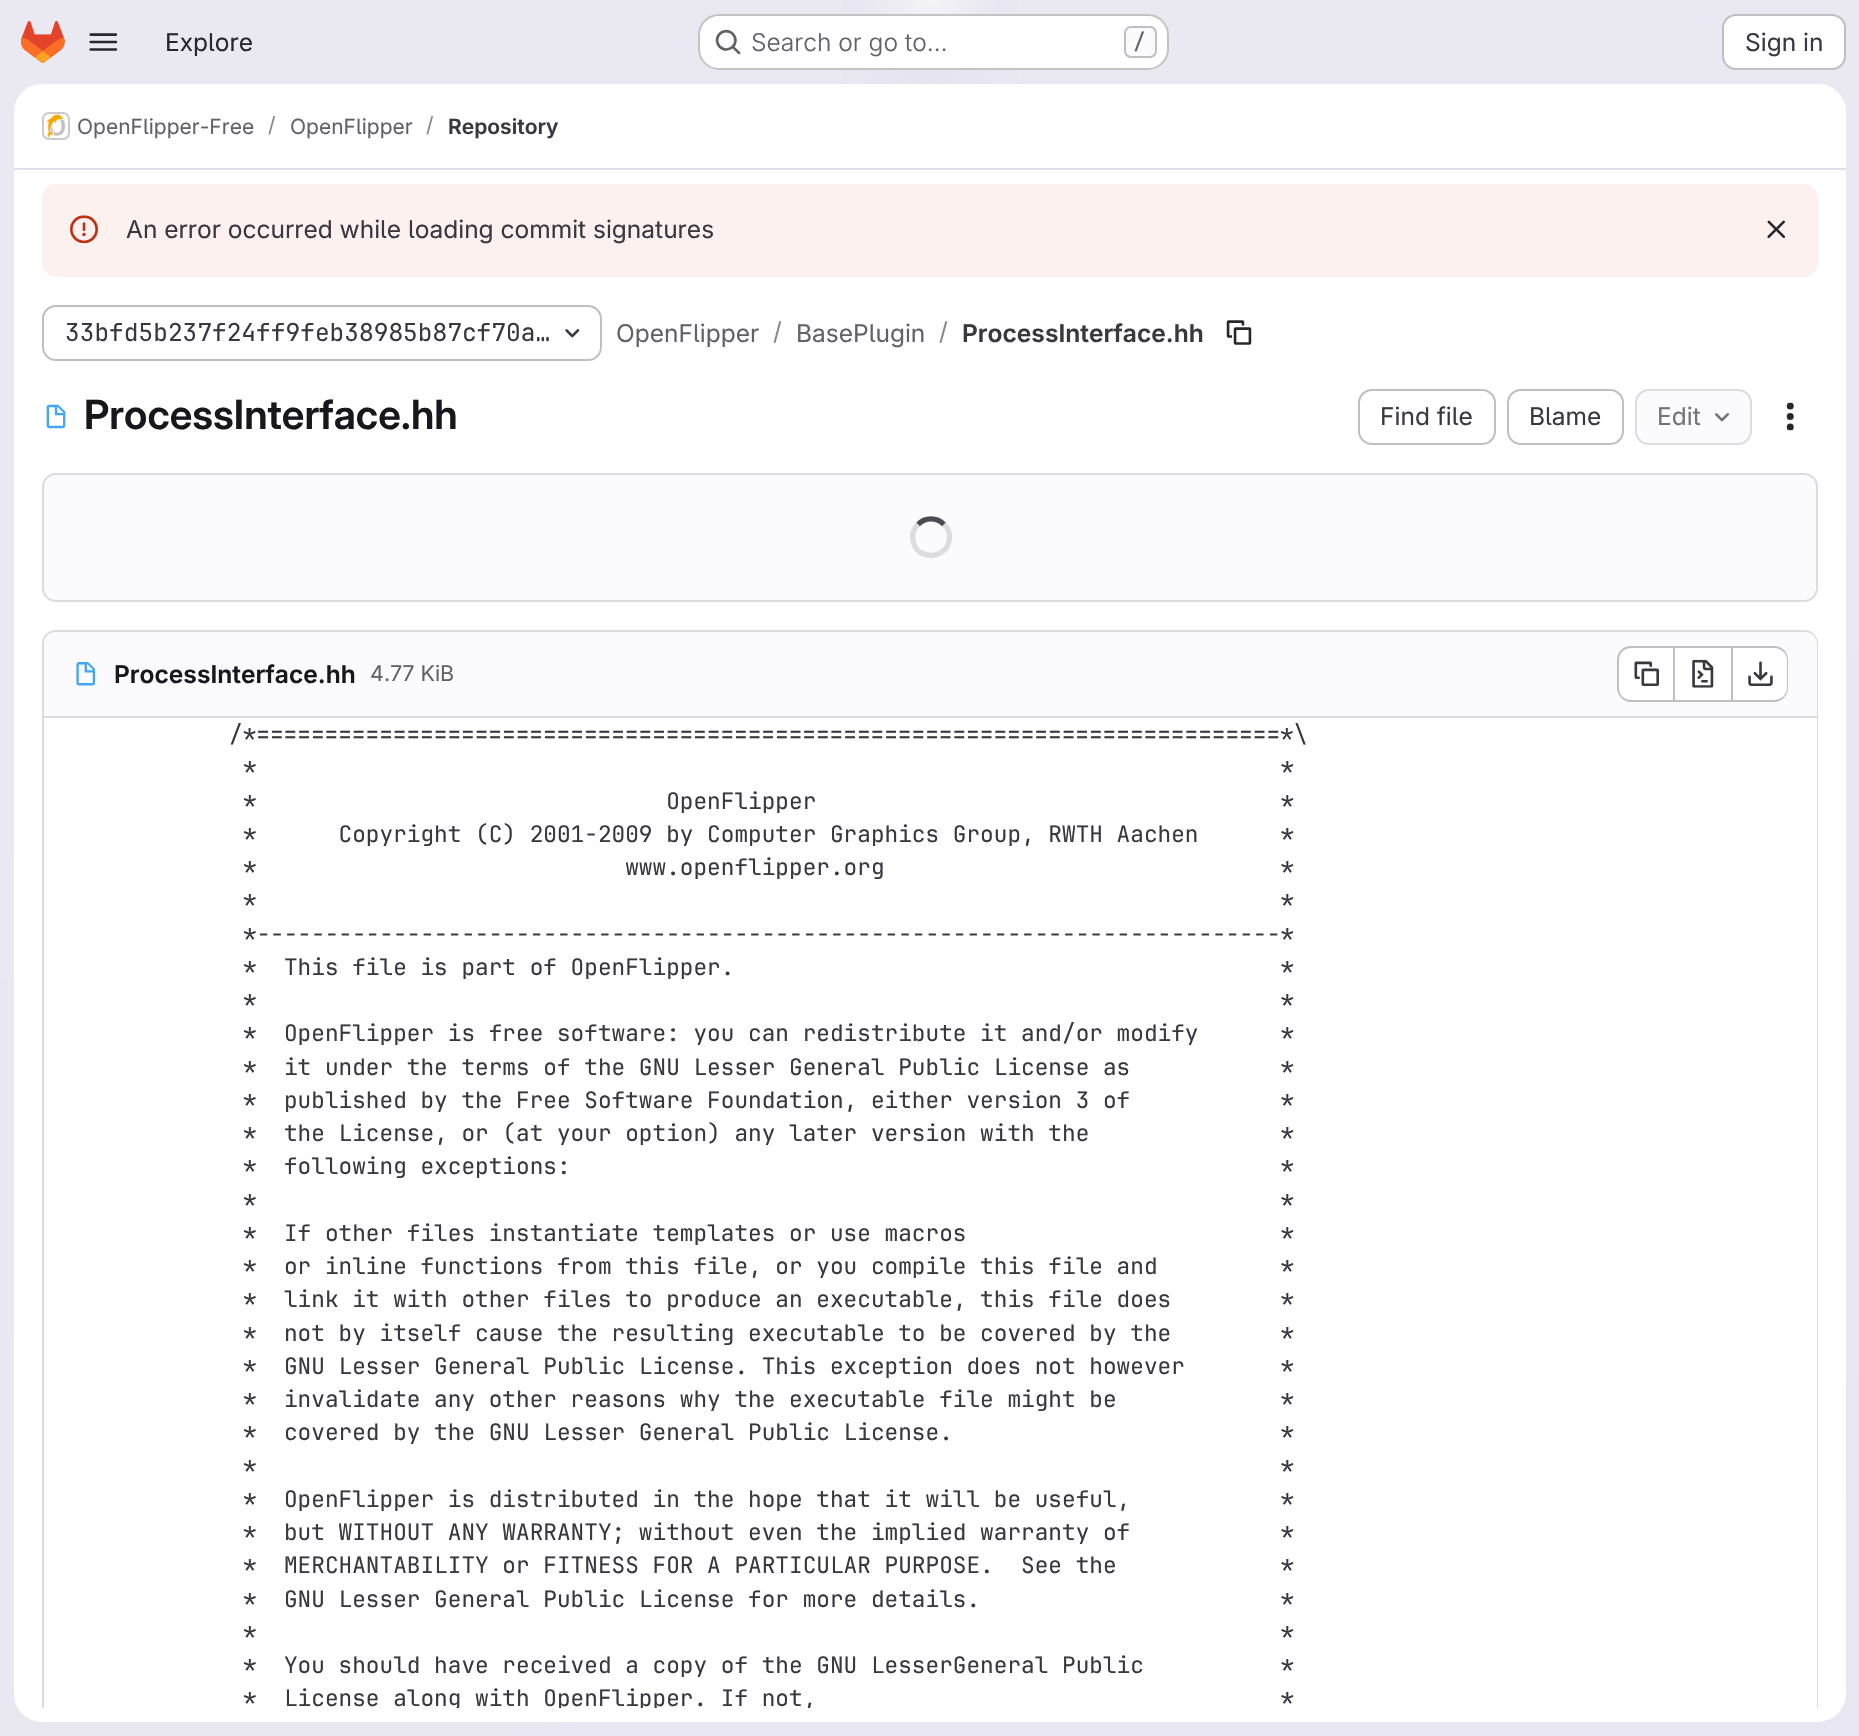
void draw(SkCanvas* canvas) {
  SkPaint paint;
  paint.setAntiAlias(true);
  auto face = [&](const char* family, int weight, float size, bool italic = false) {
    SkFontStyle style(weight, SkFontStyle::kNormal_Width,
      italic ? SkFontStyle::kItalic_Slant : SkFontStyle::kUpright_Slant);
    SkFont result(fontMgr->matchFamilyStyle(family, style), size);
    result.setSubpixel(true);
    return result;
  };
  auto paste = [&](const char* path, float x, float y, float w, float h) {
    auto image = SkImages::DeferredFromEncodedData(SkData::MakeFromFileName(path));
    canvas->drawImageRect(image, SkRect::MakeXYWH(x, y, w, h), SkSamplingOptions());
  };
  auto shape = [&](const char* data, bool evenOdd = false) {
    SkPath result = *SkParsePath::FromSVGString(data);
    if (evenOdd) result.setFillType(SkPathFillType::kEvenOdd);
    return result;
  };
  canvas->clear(0xffffffff);
  {
    const SkColor colors[] = {0xffe8e6f0, 0xffeae9f2};
    const float stops[] = {0, 0.7f};
    const SkPoint ends[] = {{1107, 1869}, {754, -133}};
    paint.setShader(SkGradientShader::MakeLinear(ends, colors, stops, 2, SkTileMode::kClamp));
    paint.setAlpha(255);
  }
  canvas->drawRect(SkRect::MakeXYWH(0, 0, 1859, 1736), paint);
  {
    const SkColor colors[] = {0xffe4e2ed, 0x00e4e2ed};
    const float stops[] = {0, 0.13f};
    SkMatrix m = SkMatrix::Translate(930, 0).preScale(930, 1736);
    paint.setShader(SkGradientShader::MakeRadial({0, 0}, 1, colors, stops, 2, SkTileMode::kClamp, 0, &m));
    paint.setAlpha(255);
  }
  canvas->drawRect(SkRect::MakeXYWH(842, 0, 176, 84), paint);
  {
    const SkColor colors[] = {0xffe4e2ec, 0x00e4e2ec};
    const float stops[] = {0, 0.09f};
    SkMatrix m = SkMatrix::Translate(930, 0).preScale(930, 1736);
    paint.setShader(SkGradientShader::MakeRadial({0, 0}, 1, colors, stops, 2, SkTileMode::kClamp, 0, &m));
    paint.setAlpha(255);
  }
  canvas->drawRect(SkRect::MakeXYWH(896, 3, 68, 59), paint);
  {
    const SkColor colors[] = {0x99ffffff, 0x00ffffff};
    const float stops[] = {0, 0.04f};
    paint.setShader(SkGradientShader::MakeRadial({930, 0}, 1969, colors, stops, 2, SkTileMode::kClamp));
    paint.setAlpha(255);
  }
  canvas->drawRect(SkRect::MakeXYWH(863, 0, 133, 14), paint);
  paste("img/1.png", 21, 21, 44, 42);
  paste("img/2.png", 89, 33, 29, 18);
  paint.setShader(nullptr);
  paint.setColor(0xffffffff);
  canvas->drawRoundRect(SkRect::MakeXYWH(698, 14, 471, 56), 21, 21, paint);
  paint.setStroke(true);
  paint.setStrokeWidth(2);
  paint.setColor(0x3d050506);
  canvas->drawRoundRect(SkRect::MakeXYWH(699, 15, 469, 54), 20, 20, paint);
  paste("img/3.png", 715, 29, 26, 26);
  paint.setStroke(false);
  paint.setColor(0xfffbfafd);
  canvas->drawRoundRect(SkRect::MakeXYWH(1125, 27, 31, 30), 6, 6, paint);
  paint.setStroke(true);
  paint.setColor(0xffbfbfc3);
  canvas->drawRoundRect(SkRect::MakeXYWH(1125, 27, 31, 30), 6, 6, paint);
  paint.setStroke(false);
  paint.setColor(0xffffffff);
  canvas->drawRoundRect(SkRect::MakeXYWH(1723, 15, 122, 54), 13, 13, paint);
  paint.setStroke(true);
  paint.setColor(0xffbfbfc3);
  canvas->drawRoundRect(SkRect::MakeXYWH(1723, 15, 122, 54), 13, 13, paint);
  paint.setStroke(false);
  paint.setColor(0xffffffff);
  canvas->drawRoundRect(SkRect::MakeXYWH(14, 84, 1832, 1638), 28, 28, paint);
  canvas->drawPath(shape("M42 84H1818C1833.5 84 1846 96.5 1846 112V170H14V112C14 96.5 26.5 84 42 84Z"), paint);
  paint.setColor(0xffe1dfec);
  canvas->drawRect(SkRect::MakeXYWH(14, 168, 1832, 2), paint);
  paint.setStroke(true);
  paint.setColor(0xffdcdcde);
  canvas->drawRoundRect(SkRect::MakeXYWH(43, 113, 26, 26), 6, 6, paint);
  paste("img/4.png", 46, 114, 20, 24);
  paint.setColor(0x14050506);
  canvas->drawRoundRect(SkRect::MakeXYWH(43, 113, 26, 26), 6, 6, paint);
  paint.setStroke(false);
  paint.setColor(0xfffcf1ef);
  canvas->drawRoundRect(SkRect::MakeXYWH(42, 184, 1776, 93), 14, 14, paint);
  paste("img/5.png", 70, 215, 28, 29);
  paste("img/6.png", 1767, 220, 19, 18);
  paint.setStroke(true);
  paint.setColor(0xffbfbfc3);
  canvas->drawRoundRect(SkRect::MakeXYWH(43, 306, 558, 54), 13, 13, paint);
  paste("img/7.png", 565, 329, 15, 9);
  paste("img/8.png", 1226, 320, 26, 25);
  paste("img/9.png", 46, 404, 20, 25);
  canvas->drawRoundRect(SkRect::MakeXYWH(1359, 390, 136, 54), 13, 13, paint);
  canvas->drawRoundRect(SkRect::MakeXYWH(1508, 390, 115, 54), 13, 13, paint);
  paint.setStroke(false);
  paint.setColor(0xfffbfafd);
  canvas->drawRoundRect(SkRect::MakeXYWH(1636, 390, 115, 54), 13, 13, paint);
  paint.setStroke(true);
  paint.setColor(0xffdcdcde);
  canvas->drawRoundRect(SkRect::MakeXYWH(1636, 390, 115, 54), 13, 13, paint);
  paste("img/10.png", 1715, 413, 14, 9);
  paste("img/11.png", 1786, 402, 8, 29);
  paint.setStroke(false);
  paint.setColor(0xfffbfafd);
  canvas->drawRoundRect(SkRect::MakeXYWH(43, 474, 1774, 127), 13, 13, paint);
  paint.setStroke(true);
  paint.setColor(0xffdcdcde);
  canvas->drawRoundRect(SkRect::MakeXYWH(43, 474, 1774, 127), 13, 13, paint);
  paint.setStrokeWidth(5.2f);
  paint.setColor(0xff4c4b51);
  canvas->drawPath(shape("M918 524.5C925 517 937 517 944 524.5"), paint);
  paint.setColor(0xffdcdcde);
  canvas->drawPath(shape("M944 524.5C947.5 527.5 949.5 532.5 949.5 537C949.5 559 917.5 562.5 913 541C912 535 913.5 528.5 918 524.5"), paint);
  canvas->save();
  canvas->clipRect(SkRect::MakeXYWH(14, 170, 1832, 1538));
  paint.setStroke(false);
  canvas->drawPath(shape("M56 630C48 630 42 636 42 644V1722H44V644C44 637 49 632 56 632H1804C1811 632 1816 637 1816 644V1722H1818V644C1818 636 1812 630 1804 630Z"), paint);
  canvas->restore();
  paint.setColor(0xfffbfafd);
  canvas->drawPath(shape("M56 632H1805C1811.5 632 1817 637.5 1817 644V718H44V644C44 637.5 49.5 632 56 632Z"), paint);
  paint.setColor(0xffdcdcde);
  canvas->drawRect(SkRect::MakeXYWH(44, 716, 1773, 2), paint);
  paste("img/12.png", 76, 662, 20, 24);
  paint.setColor(0xffffffff);
  canvas->drawPath(shape("M1631 648H1673V700H1631C1624.5 700 1619 694.5 1619 688V660C1619 653.5 1624.5 648 1631 648Z"), paint);
  paint.setColor(0xffbfbfc3);
  canvas->drawPath(shape("M1631 646H1673V702H1631C1623 702 1617 695 1617 688V660C1617 652 1623 646 1631 646ZM1631 648H1673V700H1631C1624 700 1619 695 1619 688V660C1619 653 1624 648 1631 648Z", true), paint);
  paste("img/13.png", 1634, 661, 25, 25);
  {
    const struct { float x, y, w, h; SkColor color; } items[] = {
      {1675, 648, 56, 52, 0xffffffff},
      {1675, 646, 56, 2, 0xffbfbfc3},
      {1675, 700, 56, 2, 0xffbfbfc3},
      {1673, 646, 2, 56, 0xffbfbfc3},
    };
    for (auto [x, y, w, h, color] : items) {
      paint.setColor(color);
      canvas->drawRect(SkRect::MakeXYWH(x, y, w, h), paint);
    }
  }
  paste("img/14.png", 1692, 659, 22, 29);
  paint.setColor(0xffffffff);
  canvas->drawPath(shape("M1733 648H1775C1781.5 648 1787 653.5 1787 660V688C1787 694.5 1781.5 700 1775 700H1733Z"), paint);
  paint.setColor(0xffbfbfc3);
  canvas->drawPath(shape("M1732 646H1774C1782 646 1788 652 1788 660V688C1788 695 1782 702 1774 702H1732ZM1732 648H1774C1781 648 1787 653 1787 660V688C1787 695 1781 700 1774 700H1732Z", true), paint);
  canvas->drawRect(SkRect::MakeXYWH(1731, 646, 2, 56), paint);
  paste("img/15.png", 1748, 661, 25, 25);
  paint.setColor(0xffffffff);
  canvas->drawRect(SkRect::MakeXYWH(1816, 718, 1, 990), paint);
  auto f0 = face("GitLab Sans", 400, 24.5f);
  paint.setColor(0xff28272d);
  canvas->drawString("Explore", 165, 51, f0, paint);
  auto f1 = face("GitLab Sans", 300, 24.5f);
  paint.setColor(0xff626168);
  canvas->drawString("Search or go to…", 751, 51, f1, paint);
  auto f2 = face("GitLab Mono", 500, 21);
  canvas->drawString("/", 1133, 49, f2, paint);
  paint.setColor(0xff3a383f);
  canvas->drawString("Sign in", 1745, 51, f0, paint);
  auto f3 = face("GitLab Sans", 400, 21);
  paint.setColor(0xff626168);
  canvas->drawString("OpenFlipper-Free", 77, 134, f3, paint);
  paint.setColor(0xff89888d);
  canvas->drawString("/", 268, 132, f3, paint);
  paint.setColor(0xff626168);
  canvas->drawString("OpenFlipper", 290, 134, f3, paint);
  paint.setColor(0xff89888d);
  canvas->drawString("/", 426, 132, f3, paint);
  auto f4 = face("GitLab Sans", 600, 21);
  paint.setColor(0xff3a383f);
  canvas->drawString("Repository", 448, 134, f4, paint);
  canvas->drawString("An error occurred while loading commit signatures", 126, 238, f0, paint);
  auto f5 = face("GitLab Mono", 400, 24.5f);
  canvas->drawString("33bfd5b237f24ff9feb38985b87cf70a…", 65, 341, f5, paint);
  paint.setColor(0xff626168);
  canvas->drawString("OpenFlipper", 616, 342, f0, paint);
  paint.setColor(0xff89888d);
  canvas->drawString("/", 773, 340, f0, paint);
  paint.setColor(0xff626168);
  canvas->drawString("BasePlugin", 796, 342, f0, paint);
  paint.setColor(0xff89888d);
  canvas->drawString("/", 939, 340, f0, paint);
  auto f6 = face("GitLab Sans", 600, 24.5f);
  paint.setColor(0xff3a383f);
  canvas->drawString("ProcessInterface.hh", 962, 342, f6, paint);
  auto f7 = face("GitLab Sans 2", 600, 40.25f);
  paint.setColor(0xff18171d);
  canvas->drawString("ProcessInterface.hh", 84, 429, f7, paint);
  paint.setColor(0xff3a383f);
  canvas->drawString("Find file", 1380, 425, f0, paint);
  canvas->drawString("Blame", 1529, 425, f0, paint);
  paint.setColor(0xff737278);
  canvas->drawString("Edit", 1657, 425, f0, paint);
  paint.setColor(0xff18171d);
  canvas->drawString("ProcessInterface.hh", 114, 683, f6, paint);
  auto f8 = face("GitLab Sans", 400, 21.5f);
  paint.setColor(0xff626168);
  canvas->drawString("4.77 KiB", 370, 681, f8, paint);
  auto f9 = face("GitLab Mono", 400, 22.75f);
  paint.setColor(0xff3a383f);
  {
    const struct { const char* s; float x, y; } items[] = {
      {"/*===========================================================================*\\", 229, 742},
      {"*                                                                           *", 243, 775},
      {"*                              OpenFlipper                                  *", 243, 809},
      {"*      Copyright (C) 2001-2009 by Computer Graphics Group, RWTH Aachen      *", 243, 842},
      {"*                           www.openflipper.org                             *", 243, 875},
      {"*                                                                           *", 243, 908},
      {"*---------------------------------------------------------------------------*", 243, 942},
      {"*  This file is part of OpenFlipper.                                        *", 243, 975},
      {"*                                                                           *", 243, 1008},
      {"*  OpenFlipper is free software: you can redistribute it and/or modify      *", 243, 1041},
      {"*  it under the terms of the GNU Lesser General Public License as           *", 243, 1075},
      {"*  published by the Free Software Foundation, either version 3 of           *", 243, 1108},
      {"*  the License, or (at your option) any later version with the              *", 243, 1141},
      {"*  following exceptions:                                                    *", 243, 1174},
      {"*                                                                           *", 243, 1208},
      {"*  If other files instantiate templates or use macros                       *", 243, 1241},
      {"*  or inline functions from this file, or you compile this file and         *", 243, 1274},
      {"*  link it with other files to produce an executable, this file does        *", 243, 1307},
      {"*  not by itself cause the resulting executable to be covered by the        *", 243, 1341},
      {"*  GNU Lesser General Public License. This exception does not however       *", 243, 1374},
      {"*  invalidate any other reasons why the executable file might be            *", 243, 1407},
      {"*  covered by the GNU Lesser General Public License.                        *", 243, 1440},
      {"*                                                                           *", 243, 1474},
      {"*  OpenFlipper is distributed in the hope that it will be useful,           *", 243, 1507},
      {"*  but WITHOUT ANY WARRANTY; without even the implied warranty of           *", 243, 1540},
      {"*  MERCHANTABILITY or FITNESS FOR A PARTICULAR PURPOSE.  See the            *", 243, 1573},
      {"*  GNU Lesser General Public License for more details.                      *", 243, 1607},
      {"*                                                                           *", 243, 1640},
      {"*  You should have received a copy of the GNU LesserGeneral Public          *", 243, 1673},
    };
    for (auto [s, x, y] : items) {
      canvas->drawString(s, x, y, f9, paint);
    }
  }
  canvas->save();
  canvas->clipRect(SkRect::MakeXYWH(14, 170, 1832, 1538));
  canvas->drawString("*  License along with OpenFlipper. If not,                                  *", 243, 1706, f9, paint);
  canvas->restore();
}
